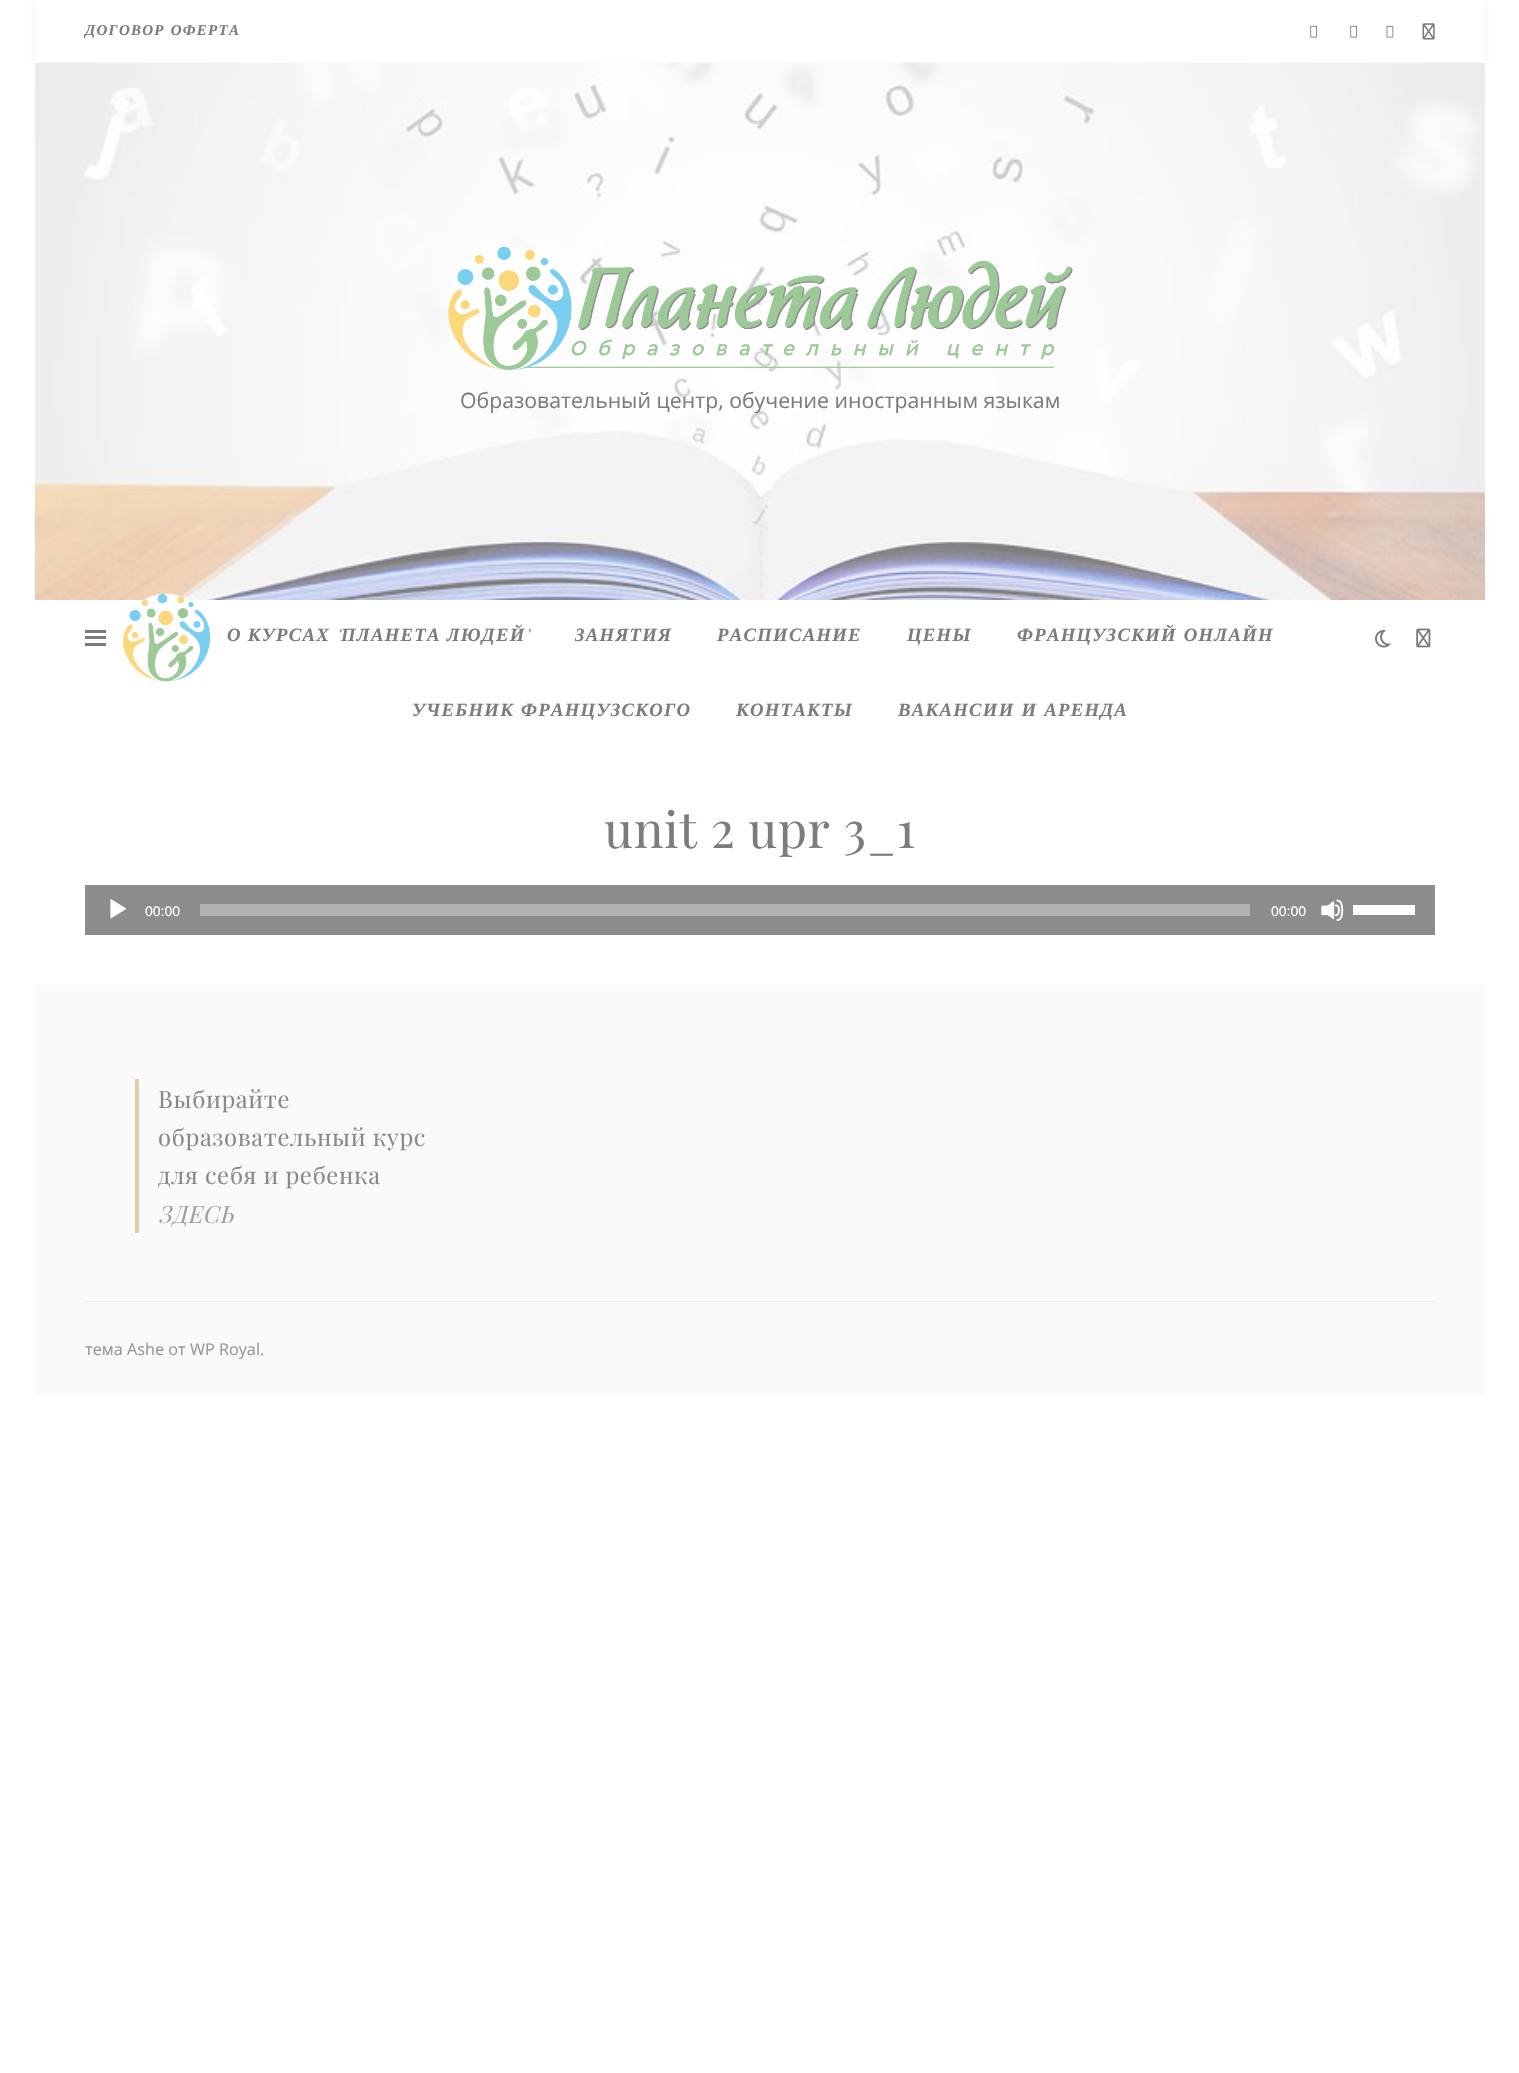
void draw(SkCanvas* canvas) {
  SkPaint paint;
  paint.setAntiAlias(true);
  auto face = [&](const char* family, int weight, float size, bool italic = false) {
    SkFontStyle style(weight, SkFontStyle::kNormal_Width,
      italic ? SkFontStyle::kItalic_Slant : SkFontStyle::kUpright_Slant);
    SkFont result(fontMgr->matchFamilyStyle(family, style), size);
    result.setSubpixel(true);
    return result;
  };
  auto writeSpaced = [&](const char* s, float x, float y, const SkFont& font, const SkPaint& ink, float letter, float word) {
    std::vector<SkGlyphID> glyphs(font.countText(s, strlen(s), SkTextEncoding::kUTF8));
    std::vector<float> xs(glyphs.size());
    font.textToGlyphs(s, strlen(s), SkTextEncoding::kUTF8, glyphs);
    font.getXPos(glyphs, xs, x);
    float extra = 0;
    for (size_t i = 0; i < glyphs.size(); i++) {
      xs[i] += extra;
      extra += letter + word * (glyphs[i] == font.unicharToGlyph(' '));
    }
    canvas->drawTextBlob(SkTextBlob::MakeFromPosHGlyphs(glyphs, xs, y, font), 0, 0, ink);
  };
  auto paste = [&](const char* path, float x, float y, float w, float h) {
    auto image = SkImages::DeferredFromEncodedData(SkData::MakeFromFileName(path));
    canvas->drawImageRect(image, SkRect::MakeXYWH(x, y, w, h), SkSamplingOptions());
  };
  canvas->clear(0xffffffff);
  paint.setColor(0x1a7a7a7a);
  paint.setMaskFilter(SkMaskFilter::MakeBlur(kNormal_SkBlurStyle, 3));
  canvas->drawRect(SkRect::MakeXYWH(35, 1, 1450, 63), paint);
  paint.setMaskFilter(nullptr);
  paint.setColor(0xffffffff);
  canvas->drawRect(SkRect::MakeXYWH(35, 0, 1450, 63), paint);
  paste("img/1.png", 1310, 25, 7, 13);
  paste("img/1.png", 1350, 25, 7, 13);
  paste("img/2.png", 1386, 25, 8, 13);
  paste("img/3.png", 1422, 23, 13, 17);
  paste("img/4.png", 35, 62, 1450, 538);
  paste("img/5.png", 447, 246, 626, 124);
  {
    const struct { float x, y, w, h; SkColor color; } items[] = {
      {85, 630, 21, 3, 0xff7a7a7a},
      {85, 636, 21, 3, 0xff7a7a7a},
      {85, 643, 21, 3, 0xff7a7a7a},
    };
    for (auto [x, y, w, h, color] : items) {
      paint.setColor(color);
      canvas->drawRect(SkRect::MakeXYWH(x, y, w, h), paint);
    }
  }
  paste("img/6.png", 122, 593, 88, 89);
  paste("img/7.png", 1375, 630, 16, 18);
  paste("img/8.png", 1416, 628, 15, 20);
  paint.setColor(0xff8c8c8c);
  canvas->drawRect(SkRect::MakeXYWH(85, 885, 1350, 50), paint);
  paste("img/9.png", 110, 899, 16, 20);
  paint.setColor(0xffb2b2b2);
  canvas->drawRect(SkRect::MakeXYWH(200, 904, 1050, 12), paint);
  paste("img/10.png", 1321, 899, 23, 22);
  {
    const struct { float x, y, w, h; SkColor color; } items[] = {
      {1353, 905, 62, 10, 0xffffffff},
      {35, 985, 1450, 410, 0xfffafafa},
      {85, 1301, 1350, 1, 0xffefecec},
      {135, 1079, 4, 154, 0xffe3cba5},
    };
    for (auto [x, y, w, h, color] : items) {
      paint.setColor(color);
      canvas->drawRect(SkRect::MakeXYWH(x, y, w, h), paint);
    }
  }
  auto f0 = face("Liberation Serif", 700, 15, true);
  paint.setColor(0xff7c7c7c);
  writeSpaced("ДОГОВОР ОФЕРТА", 85, 35, f0, paint, 1.25f, 1);
  auto f1 = face("Open Sans", 400, 21.25f);
  canvas->drawString("Образовательный центр, обучение иностранным языкам", 460, 408, f1, paint);
  auto f2 = face("Liberation Serif", 700, 18.75f, true);
  writeSpaced("О КУРСАХ", 227, 641, f2, paint, 1.25f, 0);
  auto f3 = face("Rokkitt", 600, 18.75f, true);
  writeSpaced("‘", 337, 641, f3, paint, 1.25f, 0);
  writeSpaced("ПЛАНЕТА ЛЮДЕЙ", 341, 641, f2, paint, 1.25f, 0);
  writeSpaced("’", 526, 641, f3, paint, 1.25f, 0);
  {
    const struct { const char* s; float x, y; } items[] = {
      {"ЗАНЯТИЯ", 575, 641},
      {"РАСПИСАНИЕ", 717, 641},
      {"ЦЕНЫ", 907, 641},
    };
    for (auto [s, x, y] : items) {
      writeSpaced(s, x, y, f2, paint, 1.25f, 0);
    }
  }
  writeSpaced("ФРАНЦУЗСКИЙ ОНЛАЙН", 1017, 641, f2, paint, 1.25f, 1);
  writeSpaced("УЧЕБНИК ФРАНЦУЗСКОГО", 412, 716, f2, paint, 1.25f, 1);
  writeSpaced("КОНТАКТЫ", 736, 716, f2, paint, 1.25f, 0);
  writeSpaced("ВАКАНСИИ И АРЕНДА", 898, 716, f2, paint, 1.25f, 1);
  auto f4 = face("Playfair Display", 400, 50);
  writeSpaced("unit 2 upr 3_1", 604, 848, f4, paint, 0.6f, 0);
  auto f5 = face("Liberation Sans", 400, 14);
  paint.setColor(0xffffffff);
  canvas->drawString("00:00", 145, 916, f5, paint);
  canvas->drawString("00:00", 1271, 916, f5, paint);
  auto f6 = face("Playfair Display", 400, 23.75f);
  paint.setColor(0xff888888);
  {
    const struct { const char* s; float x, y; } items[] = {
      {"Выбирайте", 158, 1108},
      {"образовательный курс", 158, 1146},
      {"для себя и ребенка", 158, 1184},
    };
    for (auto [s, x, y] : items) {
      writeSpaced(s, x, y, f6, paint, 0.6f, 0);
    }
  }
  auto f7 = face("Playfair Display", 400, 23.75f, true);
  paint.setColor(0xff9f9f9f);
  writeSpaced("ЗДЕСЬ", 158, 1223, f7, paint, 0.6f, 0);
  auto f8 = face("Open Sans", 400, 16.25f);
  paint.setColor(0xff959595);
  canvas->drawString("тема Ashe от WP Royal.", 85, 1355, f8, paint);
}
